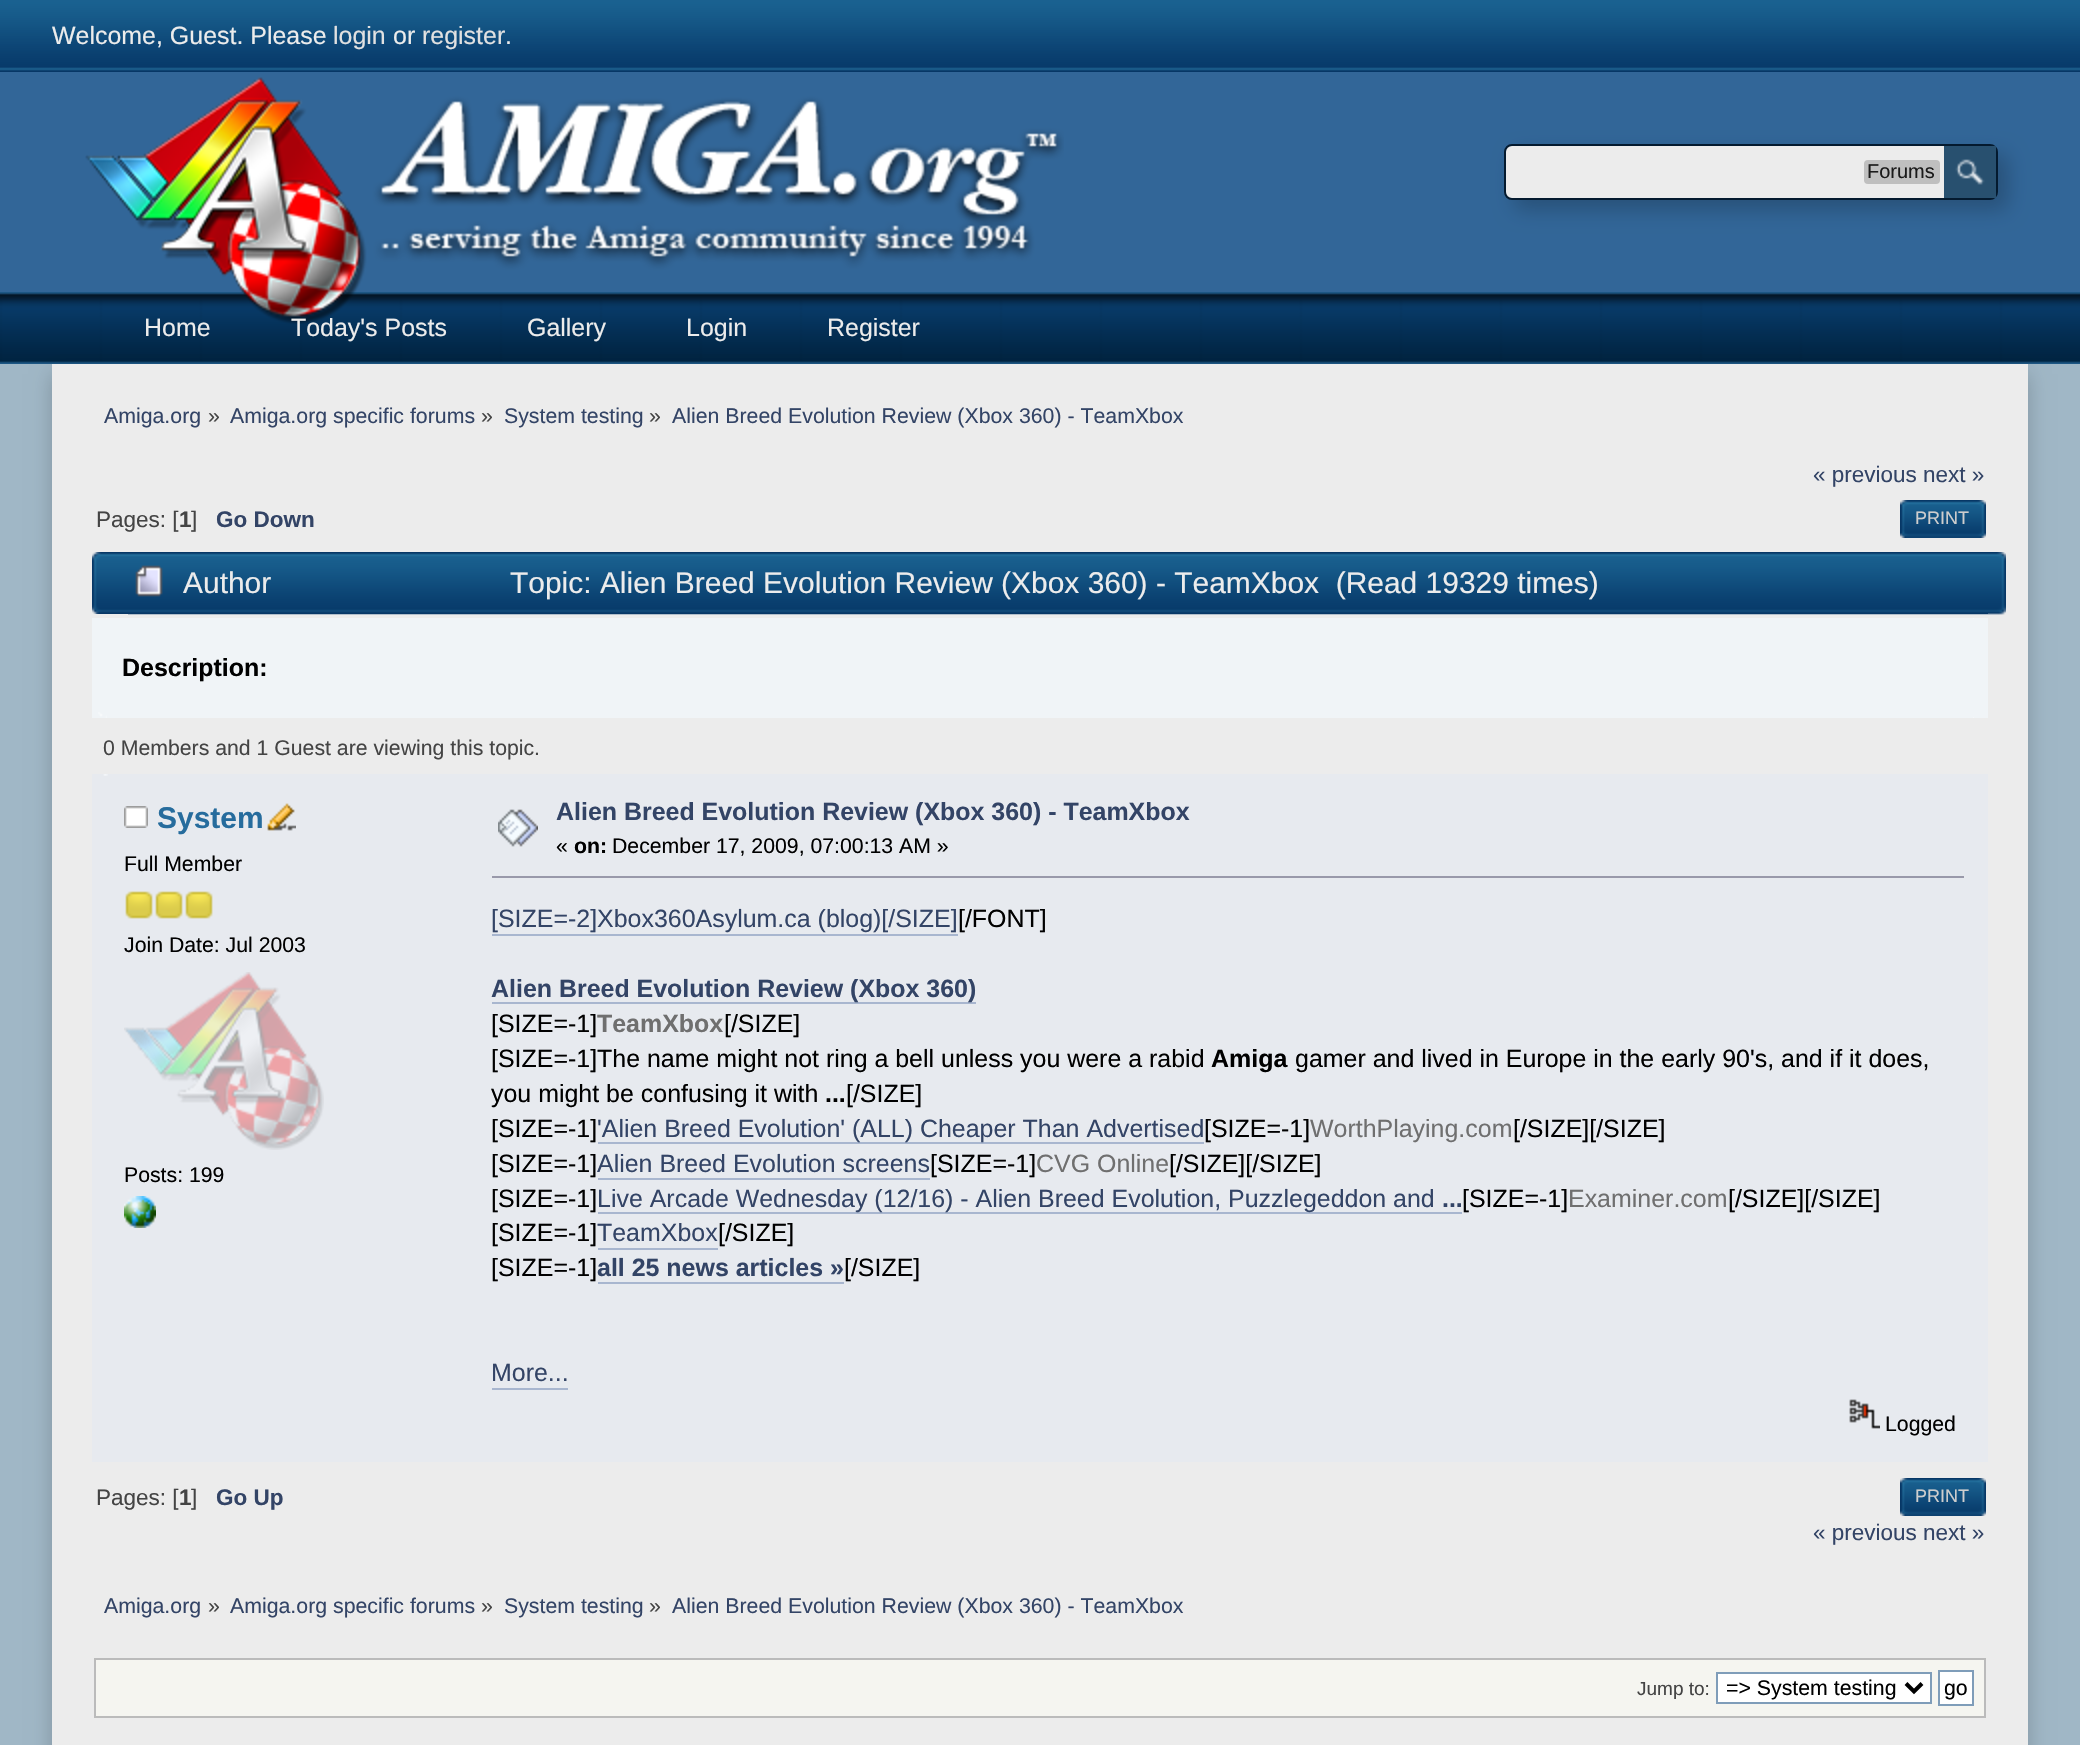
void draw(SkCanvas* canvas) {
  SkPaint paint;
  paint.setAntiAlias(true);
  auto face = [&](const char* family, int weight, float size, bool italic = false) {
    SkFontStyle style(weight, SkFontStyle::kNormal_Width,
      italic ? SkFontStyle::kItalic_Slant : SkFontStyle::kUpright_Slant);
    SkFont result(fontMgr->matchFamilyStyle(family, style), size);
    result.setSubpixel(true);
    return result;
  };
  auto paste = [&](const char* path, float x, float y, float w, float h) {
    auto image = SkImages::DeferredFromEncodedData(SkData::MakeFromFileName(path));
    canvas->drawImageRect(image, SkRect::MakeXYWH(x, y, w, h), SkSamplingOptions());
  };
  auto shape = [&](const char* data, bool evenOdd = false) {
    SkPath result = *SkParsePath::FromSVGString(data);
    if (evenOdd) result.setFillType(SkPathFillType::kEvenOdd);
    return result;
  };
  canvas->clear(0xffa0b7c6);
  paste("img/1.png", 0, 0, 2080, 72);
  paint.setColor(0xff326698);
  canvas->drawRect(SkRect::MakeXYWH(0, 72, 2080, 220), paint);
  paste("img/4.png", 0, 292, 2080, 72);
  paste("img/2.png", 85, 77, 979, 247);
  paint.setColor(0x33000000);
  paint.setMaskFilter(SkMaskFilter::MakeBlur(kNormal_SkBlurStyle, 10));
  canvas->drawRoundRect(SkRect::MakeXYWH(1514, 154, 494, 56), 8, 8, paint);
  paint.setMaskFilter(nullptr);
  paint.setColor(0xffececec);
  canvas->drawRoundRect(SkRect::MakeXYWH(1505, 145, 492, 54), 7, 7, paint);
  paint.setStroke(true);
  paint.setStrokeWidth(2);
  paint.setColor(0xff041a2f);
  canvas->drawRoundRect(SkRect::MakeXYWH(1505, 145, 492, 54), 7, 7, paint);
  paint.setStroke(false);
  paint.setColor(0xffbfbfbf);
  canvas->drawRoundRect(SkRect::MakeXYWH(1864, 160, 76, 24), 4, 4, paint);
  paint.setColor(0xff28506f);
  canvas->drawRect(SkRect::MakeXYWH(1944, 146, 52, 52), paint);
  paste("img/3.png", 1955, 159, 30, 26);
  paint.setColor(0x33000000);
  paint.setMaskFilter(SkMaskFilter::MakeBlur(kNormal_SkBlurStyle, 10));
  canvas->drawRect(SkRect::MakeXYWH(52, 374, 1976, 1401), paint);
  paint.setMaskFilter(nullptr);
  paint.setColor(0xffececec);
  canvas->drawRect(SkRect::MakeXYWH(52, 364, 1976, 1381), paint);
  paint.setColor(0xffe8e8e8);
  canvas->drawRect(SkRect::MakeXYWH(1900, 500, 9, 38), paint);
  paste("img/5.png", 1900, 500, 70, 38);
  paste("img/6.png", 1970, 500, 16, 38);
  paste("img/7.png", 92, 552, 1896, 62);
  paste("img/8.png", 128, 552, 1878, 63);
  paste("img/9.png", 135, 565, 28, 32);
  {
    const struct { float x, y, w, h; SkColor color; } items[] = {
      {92, 618, 1896, 100, 0xfff0f4f7},
      {106, 618, 1, 1, 0xfff5f7f9},
      {1973, 618, 1, 1, 0xfff5f7f9},
    };
    for (auto [x, y, w, h, color] : items) {
      paint.setColor(color);
      canvas->drawRect(SkRect::MakeXYWH(x, y, w, h), paint);
    }
  }
  paste("img/10.png", 98, 712, 9, 6);
  canvas->drawRect(SkRect::MakeXYWH(1973, 717, 1, 1), paint);
  paint.setColor(0xffe7eaef);
  canvas->drawRect(SkRect::MakeXYWH(92, 774, 1896, 688), paint);
  paste("img/11.png", 103, 774, 5, 2);
  paste("img/12.png", 124, 806, 24, 22);
  paste("img/13.png", 267, 803, 29, 28);
  paste("img/14.png", 125, 891, 28, 28);
  paste("img/14.png", 155, 891, 28, 28);
  paste("img/14.png", 185, 891, 28, 28);
  paste("img/15.png", 124, 972, 200, 178);
  paste("img/16.png", 124, 1196, 32, 32);
  paste("img/17.png", 498, 809, 40, 38);
  {
    const struct { float x, y, w, h; SkColor color; } items[] = {
      {492, 876, 1472, 2, 0xff9999aa},
      {492, 934, 466, 2, 0xffa8b6cf},
      {492, 1002, 484, 2, 0xffa8b6cf},
      {598, 1142, 606, 2, 0xffa8b6cf},
      {598, 1178, 332, 2, 0xffa8b6cf},
      {598, 1212, 864, 2, 0xffa8b6cf},
      {598, 1248, 120, 2, 0xffa8b6cf},
      {598, 1282, 246, 2, 0xffa8b6cf},
      {492, 1388, 76, 2, 0xffa8b6cf},
    };
    for (auto [x, y, w, h, color] : items) {
      paint.setColor(color);
      canvas->drawRect(SkRect::MakeXYWH(x, y, w, h), paint);
    }
  }
  paste("img/18.png", 1849, 1399, 31, 30);
  paint.setColor(0xffe8e8e8);
  canvas->drawRect(SkRect::MakeXYWH(1900, 1478, 9, 38), paint);
  paste("img/5.png", 1900, 1478, 70, 38);
  paste("img/6.png", 1970, 1478, 16, 38);
  paint.setColor(0xfff5f5f0);
  canvas->drawRect(SkRect::MakeXYWH(95, 1659, 1890, 58), paint);
  paint.setStroke(true);
  paint.setColor(0xffbbbbbb);
  canvas->drawRect(SkRect::MakeXYWH(95, 1659, 1890, 58), paint);
  paint.setStroke(false);
  paint.setColor(0xffffffff);
  canvas->drawRect(SkRect::MakeXYWH(1717, 1673, 214, 30), paint);
  paint.setStroke(true);
  paint.setColor(0xff7f9db9);
  canvas->drawRect(SkRect::MakeXYWH(1717, 1673, 214, 30), paint);
  paint.setStrokeWidth(4);
  paint.setColor(0xff000000);
  canvas->drawPath(shape("M1906 1683.5L1914 1691.5L1922 1683.5"), paint);
  paint.setStroke(false);
  paint.setColor(0xffffffff);
  canvas->drawRect(SkRect::MakeXYWH(1939, 1671, 34, 34), paint);
  paint.setStroke(true);
  paint.setStrokeWidth(2);
  paint.setColor(0xff7f9db9);
  canvas->drawRect(SkRect::MakeXYWH(1939, 1671, 34, 34), paint);
  auto f0 = face("Liberation Sans", 400, 24.95f);
  paint.setStroke(false);
  paint.setColor(0xffececec);
  canvas->drawString("Welcome, Guest. Please", 52, 44, f0, paint);
  paint.setColor(0xffe1e1e1);
  canvas->drawString("login", 333, 44, f0, paint);
  paint.setColor(0xffececec);
  canvas->drawString("or", 393, 44, f0, paint);
  paint.setColor(0xffe1e1e1);
  canvas->drawString("register", 422, 44, f0, paint);
  paint.setColor(0xffececec);
  canvas->drawString(".", 505, 44, f0, paint);
  auto f1 = face("Liberation Sans", 400, 20);
  paint.setColor(0xff1a1a1a);
  canvas->drawString("Forums", 1867, 178, f1, paint);
  paint.setColor(0xffececec);
  {
    const struct { const char* s; float x, y; } items[] = {
      {"Home", 144, 336},
      {"Today's Posts", 291, 336},
      {"Gallery", 527, 336},
      {"Login", 686, 336},
      {"Register", 827, 336},
    };
    for (auto [s, x, y] : items) {
      canvas->drawString(s, x, y, f0, paint);
    }
  }
  auto f2 = face("Liberation Sans", 400, 21.3f);
  paint.setColor(0xff334466);
  canvas->drawString("Amiga.org", 104, 423, f2, paint);
  paint.setColor(0xff444444);
  canvas->drawString("»", 208, 423, f2, paint);
  paint.setColor(0xff334466);
  canvas->drawString("Amiga.org specific forums", 230, 423, f2, paint);
  paint.setColor(0xff444444);
  canvas->drawString("»", 481, 423, f2, paint);
  paint.setColor(0xff334466);
  canvas->drawString("System testing", 504, 423, f2, paint);
  paint.setColor(0xff444444);
  canvas->drawString("»", 649, 423, f2, paint);
  paint.setColor(0xff334466);
  canvas->drawString("Alien Breed Evolution Review (Xbox 360) - TeamXbox", 672, 423, f2, paint);
  auto f3 = face("Liberation Sans", 400, 22.5f);
  canvas->drawString("« previous next »", 1813, 482, f3, paint);
  paint.setColor(0xff444444);
  canvas->drawString("Pages: [", 96, 527, f3, paint);
  auto f4 = face("Liberation Sans", 700, 22.5f);
  canvas->drawString("1", 179, 527, f4, paint);
  canvas->drawString("]", 191, 527, f3, paint);
  paint.setColor(0xff334466);
  canvas->drawString("Go Down", 216, 527, f4, paint);
  auto f5 = face("Liberation Sans", 400, 18);
  paint.setColor(0xffcecece);
  canvas->drawString("PRINT", 1915, 524, f5, paint);
  auto f6 = face("Liberation Sans", 400, 29.95f);
  paint.setColor(0xffececec);
  canvas->drawString("Author", 183, 593, f6, paint);
  canvas->drawString("Topic: Alien Breed Evolution Review (Xbox 360) - TeamXbox  (Read 19329 times)", 510, 593, f6, paint);
  auto f7 = face("Liberation Sans", 700, 24.95f);
  paint.setColor(0xff000000);
  canvas->drawString("Description:", 122, 676, f7, paint);
  auto f8 = face("Liberation Sans", 400, 21.25f);
  paint.setColor(0xff444444);
  canvas->drawString("0 Members and 1 Guest are viewing this topic.", 103, 755, f8, paint);
  auto f9 = face("Liberation Sans", 700, 29.95f);
  paint.setColor(0xff266c9d);
  canvas->drawString("System", 157, 828, f9, paint);
  paint.setColor(0xff000000);
  {
    const struct { const char* s; float x, y; } items[] = {
      {"Full Member", 124, 871},
      {"Join Date: Jul 2003", 124, 952},
      {"Posts: 199", 124, 1182},
    };
    for (auto [s, x, y] : items) {
      canvas->drawString(s, x, y, f8, paint);
    }
  }
  paint.setColor(0xff334466);
  canvas->drawString("Alien Breed Evolution Review (Xbox 360) - TeamXbox", 556, 820, f7, paint);
  paint.setColor(0xff000000);
  canvas->drawString("«", 556, 853, f8, paint);
  auto f10 = face("Liberation Sans", 700, 21.25f);
  canvas->drawString("on:", 574, 853, f10, paint);
  canvas->drawString("December 17, 2009, 07:00:13 AM »", 612, 853, f8, paint);
  paint.setColor(0xff334466);
  canvas->drawString("[SIZE=-2]Xbox360Asylum.ca (blog)[/SIZE]", 491, 927, f0, paint);
  paint.setColor(0xff000000);
  canvas->drawString("[/FONT]", 958, 927, f0, paint);
  paint.setColor(0xff334466);
  canvas->drawString("Alien Breed Evolution Review (Xbox 360)", 491, 997, f7, paint);
  paint.setColor(0xff000000);
  canvas->drawString("[SIZE=-1]", 491, 1032, f0, paint);
  paint.setColor(0xff6f6f6f);
  canvas->drawString("TeamXbox", 597, 1032, f7, paint);
  paint.setColor(0xff000000);
  canvas->drawString("[/SIZE]", 724, 1032, f0, paint);
  canvas->drawString("[SIZE=-1]The name might not ring a bell unless you were a rabid", 491, 1067, f0, paint);
  canvas->drawString("Amiga", 1211, 1067, f7, paint);
  canvas->drawString("gamer and lived in Europe in the early 90's, and if it does,", 1295, 1067, f0, paint);
  canvas->drawString("you might be confusing it with", 491, 1102, f0, paint);
  canvas->drawString("...", 825, 1102, f7, paint);
  canvas->drawString("[/SIZE]", 846, 1102, f0, paint);
  canvas->drawString("[SIZE=-1]", 491, 1137, f0, paint);
  paint.setColor(0xff334466);
  canvas->drawString("'Alien Breed Evolution' (ALL) Cheaper Than Advertised", 597, 1137, f0, paint);
  paint.setColor(0xff000000);
  canvas->drawString("[SIZE=-1]", 1204, 1137, f0, paint);
  paint.setColor(0xff6f6f6f);
  canvas->drawString("WorthPlaying.com", 1310, 1137, f0, paint);
  paint.setColor(0xff000000);
  canvas->drawString("[/SIZE][/SIZE]", 1513, 1137, f0, paint);
  canvas->drawString("[SIZE=-1]", 491, 1172, f0, paint);
  paint.setColor(0xff334466);
  canvas->drawString("Alien Breed Evolution screens", 597, 1172, f0, paint);
  paint.setColor(0xff000000);
  canvas->drawString("[SIZE=-1]", 930, 1172, f0, paint);
  paint.setColor(0xff6f6f6f);
  canvas->drawString("CVG Online", 1036, 1172, f0, paint);
  paint.setColor(0xff000000);
  canvas->drawString("[/SIZE][/SIZE]", 1169, 1172, f0, paint);
  canvas->drawString("[SIZE=-1]", 491, 1207, f0, paint);
  paint.setColor(0xff334466);
  canvas->drawString("Live Arcade Wednesday (12/16) - Alien Breed Evolution, Puzzlegeddon and", 597, 1207, f0, paint);
  canvas->drawString("...", 1442, 1207, f7, paint);
  paint.setColor(0xff000000);
  canvas->drawString("[SIZE=-1]", 1462, 1207, f0, paint);
  paint.setColor(0xff6f6f6f);
  canvas->drawString("Examiner.com", 1568, 1207, f0, paint);
  paint.setColor(0xff000000);
  canvas->drawString("[/SIZE][/SIZE]", 1728, 1207, f0, paint);
  canvas->drawString("[SIZE=-1]", 491, 1241, f0, paint);
  paint.setColor(0xff334466);
  canvas->drawString("TeamXbox", 597, 1241, f0, paint);
  paint.setColor(0xff000000);
  canvas->drawString("[/SIZE]", 718, 1241, f0, paint);
  canvas->drawString("[SIZE=-1]", 491, 1276, f0, paint);
  paint.setColor(0xff334466);
  canvas->drawString("all 25 news articles »", 597, 1276, f7, paint);
  paint.setColor(0xff000000);
  canvas->drawString("[/SIZE]", 844, 1276, f0, paint);
  paint.setColor(0xff334466);
  canvas->drawString("More...", 491, 1381, f0, paint);
  paint.setColor(0xff000000);
  canvas->drawString("Logged", 1885, 1431, f8, paint);
  paint.setColor(0xff444444);
  canvas->drawString("Pages: [", 96, 1505, f3, paint);
  canvas->drawString("1", 179, 1505, f4, paint);
  canvas->drawString("]", 191, 1505, f3, paint);
  paint.setColor(0xff334466);
  canvas->drawString("Go Up", 216, 1505, f4, paint);
  paint.setColor(0xffcecece);
  canvas->drawString("PRINT", 1915, 1502, f5, paint);
  paint.setColor(0xff334466);
  canvas->drawString("« previous next »", 1813, 1540, f3, paint);
  canvas->drawString("Amiga.org", 104, 1613, f2, paint);
  paint.setColor(0xff444444);
  canvas->drawString("»", 208, 1613, f2, paint);
  paint.setColor(0xff334466);
  canvas->drawString("Amiga.org specific forums", 230, 1613, f2, paint);
  paint.setColor(0xff444444);
  canvas->drawString("»", 481, 1613, f2, paint);
  paint.setColor(0xff334466);
  canvas->drawString("System testing", 504, 1613, f2, paint);
  paint.setColor(0xff444444);
  canvas->drawString("»", 649, 1613, f2, paint);
  paint.setColor(0xff334466);
  canvas->drawString("Alien Breed Evolution Review (Xbox 360) - TeamXbox", 672, 1613, f2, paint);
  auto f11 = face("Liberation Sans", 400, 19);
  paint.setColor(0xff444444);
  canvas->drawString("Jump to:", 1637, 1695, f11, paint);
  paint.setColor(0xff000000);
  canvas->drawString("=> System testing", 1726, 1695, f2, paint);
  canvas->drawString("go", 1944, 1695, f2, paint);
}
